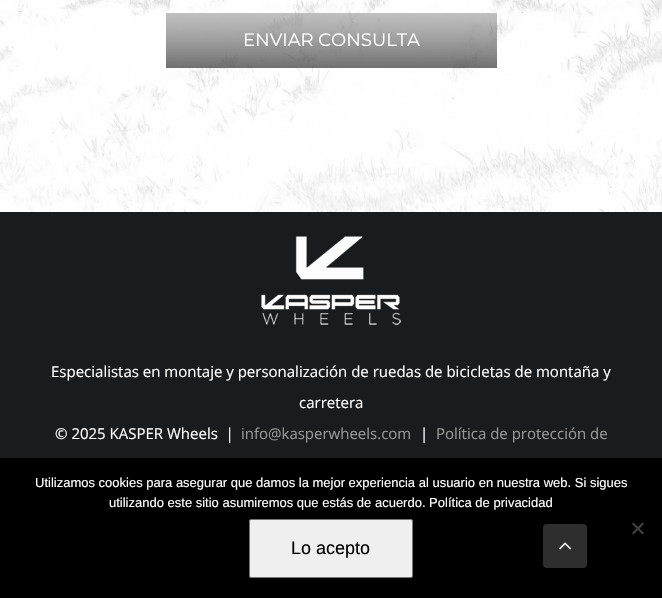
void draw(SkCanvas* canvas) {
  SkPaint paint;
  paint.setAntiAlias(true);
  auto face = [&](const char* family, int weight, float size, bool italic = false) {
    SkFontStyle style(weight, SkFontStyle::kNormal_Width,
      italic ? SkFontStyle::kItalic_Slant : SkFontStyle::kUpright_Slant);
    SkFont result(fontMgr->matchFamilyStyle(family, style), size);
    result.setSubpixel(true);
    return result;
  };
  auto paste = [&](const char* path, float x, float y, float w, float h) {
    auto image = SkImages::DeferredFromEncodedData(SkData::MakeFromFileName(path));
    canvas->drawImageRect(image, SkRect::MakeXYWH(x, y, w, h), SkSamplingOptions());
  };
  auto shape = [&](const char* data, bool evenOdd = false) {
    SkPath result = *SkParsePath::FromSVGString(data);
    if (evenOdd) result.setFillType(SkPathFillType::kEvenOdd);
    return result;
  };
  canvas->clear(0xffffffff);
  paste("img/1.png", 0, 0, 662, 212);
  paint.setColor(0x5e999999);
  canvas->drawRect(SkRect::MakeXYWH(166, 13, 331, 55), paint);
  {
    const SkColor colors[] = {0x5e999999, 0x7a000000};
    const float stops[] = {0, 1};
    const SkPoint ends[] = {{332, 13}, {332, 68}};
    paint.setShader(SkGradientShader::MakeLinear(ends, colors, stops, 2, SkTileMode::kClamp));
    paint.setAlpha(255);
  }
  canvas->drawRect(SkRect::MakeXYWH(166, 13, 331, 55), paint);
  paint.setShader(nullptr);
  paint.setColor(0xff191c1e);
  canvas->drawRect(SkRect::MakeXYWH(0, 212, 662, 246), paint);
  paste("img/2.png", 261, 236, 140, 89);
  paint.setColor(0xff000000);
  canvas->drawRect(SkRect::MakeXYWH(0, 458, 662, 140), paint);
  paint.setColor(0xff404040);
  canvas->drawPath(shape("M642.5 522.5L644 524L633.5 534.5L632 533Z"), paint);
  canvas->drawPath(shape("M632 524L633.5 522.5L644 533L642.5 534.5Z"), paint);
  paint.setColor(0xffefefef);
  canvas->drawRoundRect(SkRect::MakeXYWH(249.5f, 519.5f, 163, 58), 1.5f, 1.5f, paint);
  paint.setStroke(true);
  paint.setStrokeWidth(1);
  paint.setColor(0xff767676);
  canvas->drawRoundRect(SkRect::MakeXYWH(249.5f, 519.5f, 163, 58), 1.5f, 1.5f, paint);
  paint.setStroke(false);
  paint.setColor(0xff2e2e2e);
  canvas->drawRoundRect(SkRect::MakeXYWH(543, 524, 44, 44), 4, 4, paint);
  paste("img/3.png", 559, 542, 13, 8);
  auto f0 = face("Montserrat", 400, 18);
  paint.setColor(0xffffffff);
  canvas->drawString("ENVIAR CONSULTA", 243, 46, f0, paint);
  auto f1 = face("Open Sans", 400, 15);
  {
    const struct { const char* s; float x, y; } items[] = {
      {"Especialistas en montaje y personalización de ruedas de bicicletas de montaña y", 51, 377},
      {"carretera", 299, 408},
      {"© 2025 KASPER Wheels  |", 55, 439},
    };
    for (auto [s, x, y] : items) {
      canvas->drawString(s, x, y, f1, paint);
    }
  }
  paint.setColor(0xff999999);
  canvas->drawString("info@kasperwheels.com", 241, 439, f1, paint);
  paint.setColor(0xffffffff);
  canvas->drawString("|", 420, 439, f1, paint);
  paint.setColor(0xff999999);
  canvas->drawString("Política de protección de", 436, 439, f1, paint);
  auto f2 = face("Liberation Sans", 400, 13);
  paint.setColor(0xffffffff);
  canvas->drawString("Utilizamos cookies para asegurar que damos la mejor experiencia al usuario en nuestra web. Si sigues", 35, 487, f2, paint);
  canvas->drawString("utilizando este sitio asumiremos que estás de acuerdo. Política de privacidad", 109, 507, f2, paint);
  auto f3 = face("Liberation Sans", 400, 18);
  paint.setColor(0xff000000);
  canvas->drawString("Lo acepto", 291, 554, f3, paint);
}
